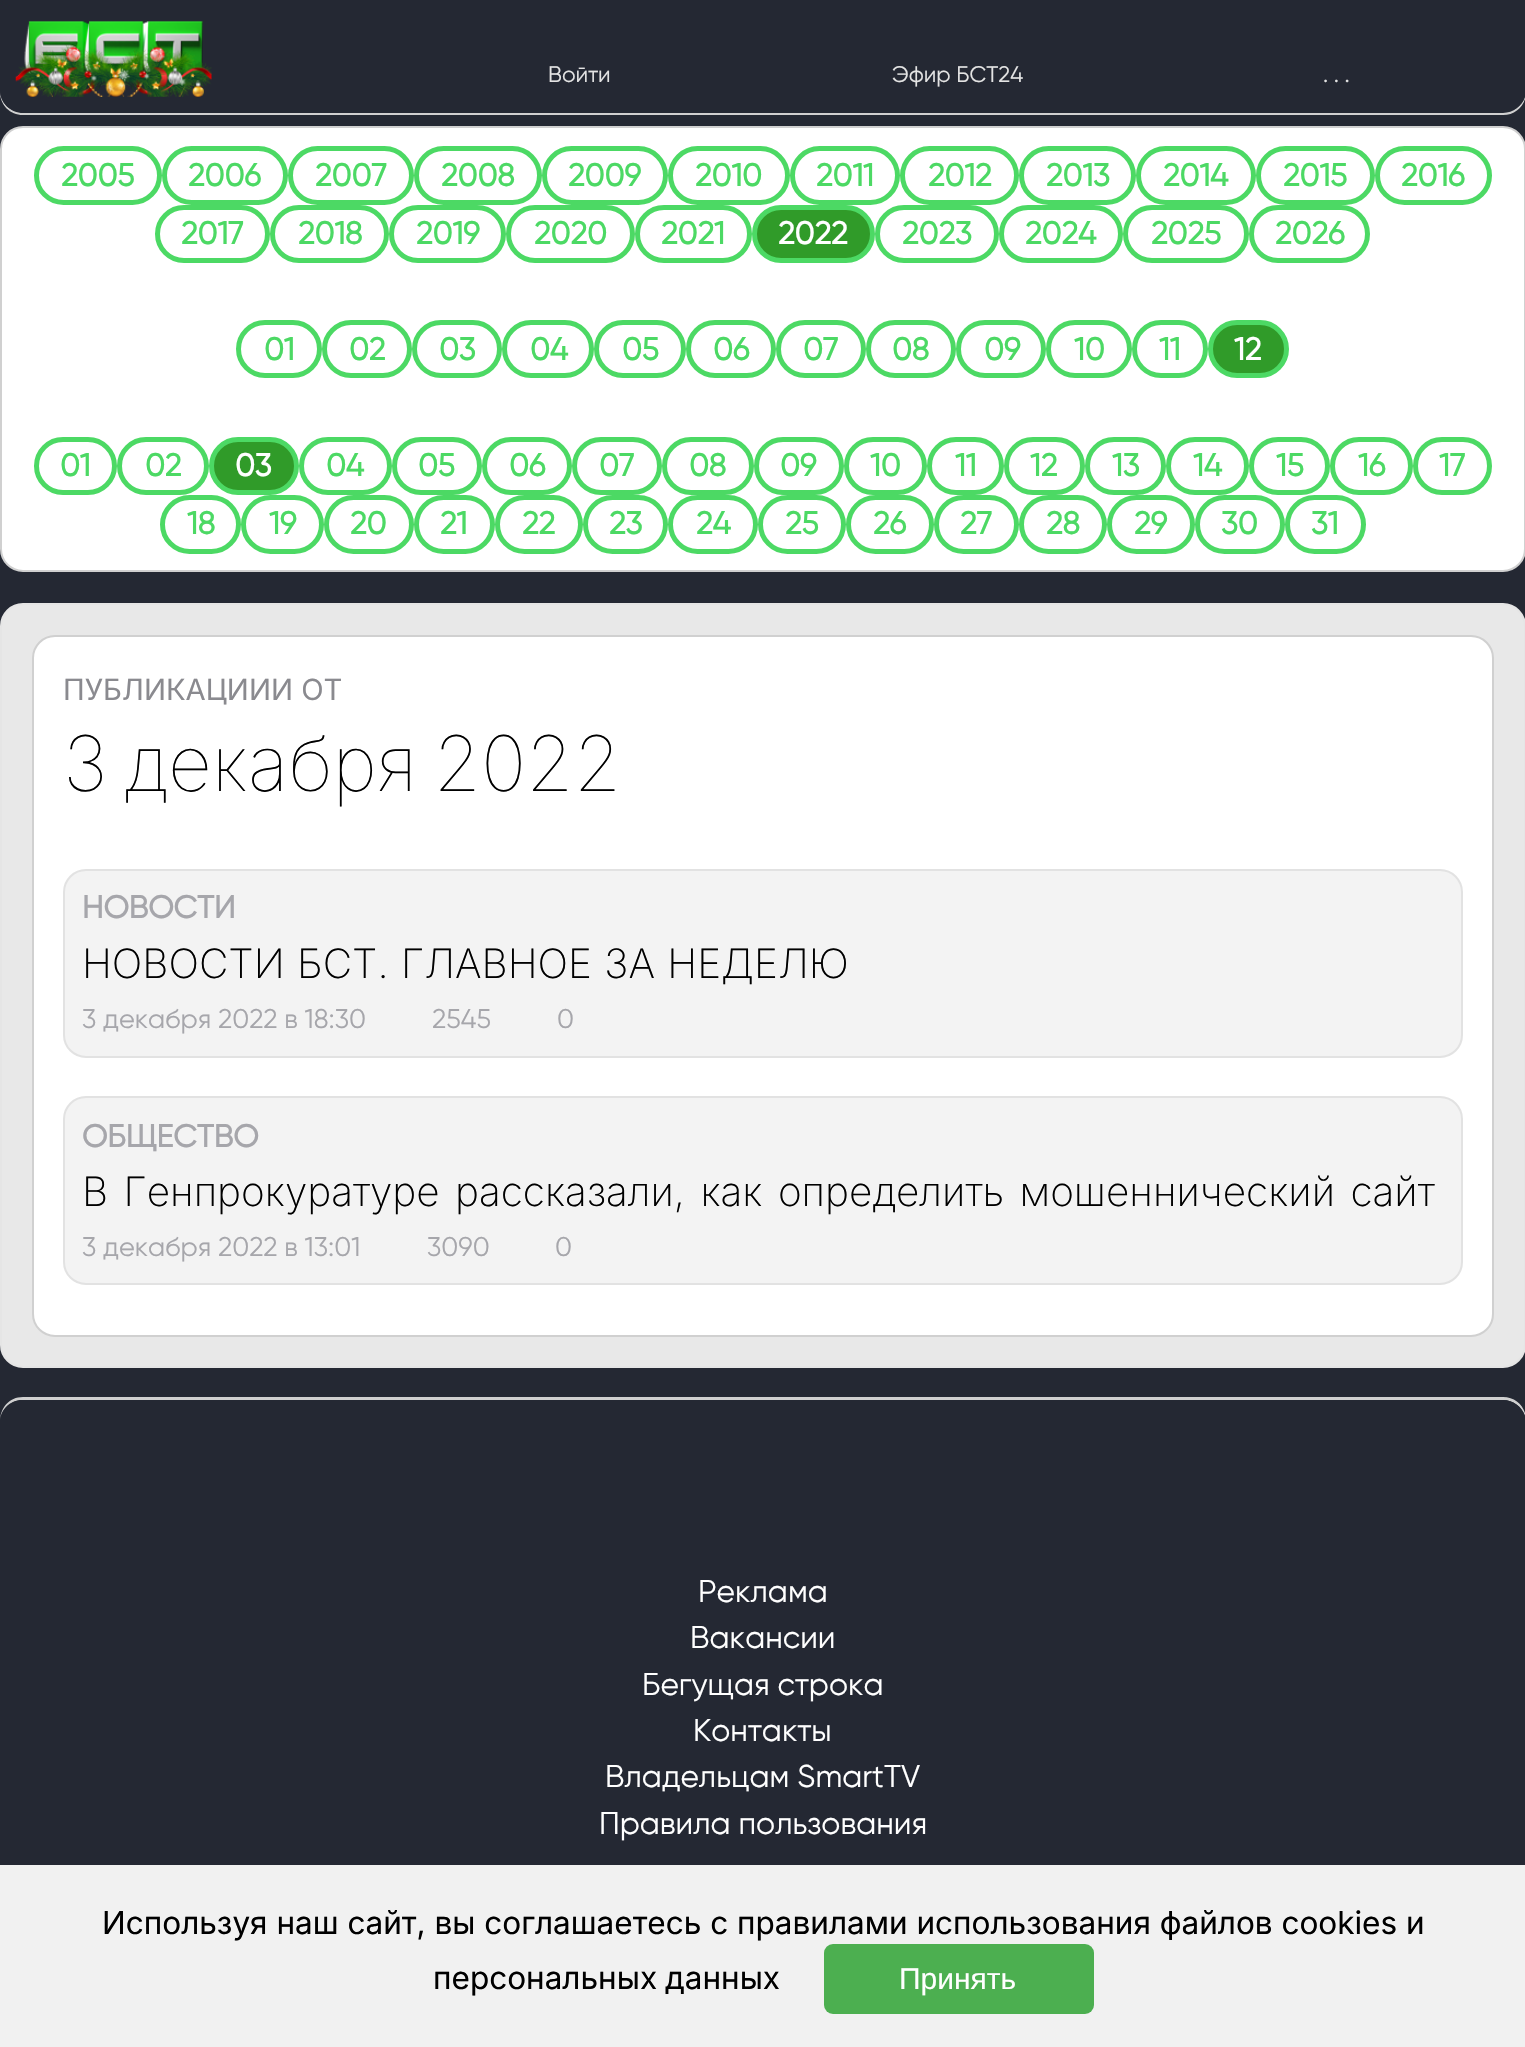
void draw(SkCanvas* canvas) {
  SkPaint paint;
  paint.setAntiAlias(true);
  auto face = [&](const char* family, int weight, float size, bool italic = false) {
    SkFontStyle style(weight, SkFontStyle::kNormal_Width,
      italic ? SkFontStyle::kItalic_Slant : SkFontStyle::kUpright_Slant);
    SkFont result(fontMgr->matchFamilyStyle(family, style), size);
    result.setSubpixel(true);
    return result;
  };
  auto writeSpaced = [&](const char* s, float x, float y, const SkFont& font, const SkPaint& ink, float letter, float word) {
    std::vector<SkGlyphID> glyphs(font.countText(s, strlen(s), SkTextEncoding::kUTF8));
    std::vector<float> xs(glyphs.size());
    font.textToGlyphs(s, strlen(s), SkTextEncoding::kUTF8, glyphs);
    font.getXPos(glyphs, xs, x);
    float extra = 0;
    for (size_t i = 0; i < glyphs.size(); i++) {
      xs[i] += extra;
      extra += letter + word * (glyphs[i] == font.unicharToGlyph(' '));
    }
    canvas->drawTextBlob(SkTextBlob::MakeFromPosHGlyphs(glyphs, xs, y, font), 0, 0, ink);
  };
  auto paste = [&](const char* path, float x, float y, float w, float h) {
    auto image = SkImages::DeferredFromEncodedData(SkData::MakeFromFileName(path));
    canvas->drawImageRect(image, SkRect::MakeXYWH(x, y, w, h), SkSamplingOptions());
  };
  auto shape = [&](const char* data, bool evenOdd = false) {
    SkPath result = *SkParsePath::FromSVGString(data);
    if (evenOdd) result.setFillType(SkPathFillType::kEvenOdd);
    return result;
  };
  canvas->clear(0xff242833);
  paint.setColor(0xffd0d0d0);
  canvas->drawPath(shape("M0 90V92C0 105 10 115 23 115H1503C1516 115 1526 105 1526 92V2V90C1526 103 1516 112 1503 112H22C10 112 0 103 0 90Z"), paint);
  paint.setColor(0xff242833);
  canvas->drawPath(shape("M0 0H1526V90C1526 102.5 1515.5 113 1503 113H23C10.5 113 0 102.5 0 90Z"), paint);
  paste("img/1.png", 15, 21, 197, 76);
  paint.setColor(0xffffffff);
  canvas->drawRoundRect(SkRect::MakeXYWH(1, 127, 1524, 444), 22, 22, paint);
  paint.setStroke(true);
  paint.setStrokeWidth(2);
  paint.setColor(0xffd0d0d0);
  canvas->drawRoundRect(SkRect::MakeXYWH(1, 127, 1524, 444), 22, 22, paint);
  paint.setStrokeWidth(5);
  paint.setColor(0xff4cd964);
  canvas->drawRoundRect(SkRect::MakeXYWH(36.5f, 148.5f, 123, 54), 27, 27, paint);
  canvas->drawRoundRect(SkRect::MakeXYWH(164.5f, 148.5f, 121, 54), 27, 27, paint);
  canvas->drawRoundRect(SkRect::MakeXYWH(290.5f, 148.5f, 121, 54), 27, 27, paint);
  canvas->drawRoundRect(SkRect::MakeXYWH(416.5f, 148.5f, 123, 54), 27, 27, paint);
  canvas->drawRoundRect(SkRect::MakeXYWH(544.5f, 148.5f, 121, 54), 27, 27, paint);
  canvas->drawRoundRect(SkRect::MakeXYWH(670.5f, 148.5f, 117, 54), 27, 27, paint);
  canvas->drawRoundRect(SkRect::MakeXYWH(792.5f, 148.5f, 105, 54), 27, 27, paint);
  canvas->drawRoundRect(SkRect::MakeXYWH(902.5f, 148.5f, 114, 54), 27, 27, paint);
  canvas->drawRoundRect(SkRect::MakeXYWH(1021.5f, 148.5f, 112, 54), 27, 27, paint);
  canvas->drawRoundRect(SkRect::MakeXYWH(1138.5f, 148.5f, 115, 54), 27, 27, paint);
  canvas->drawRoundRect(SkRect::MakeXYWH(1258.5f, 148.5f, 114, 54), 27, 27, paint);
  canvas->drawRoundRect(SkRect::MakeXYWH(1377.5f, 148.5f, 112, 54), 27, 27, paint);
  canvas->drawRoundRect(SkRect::MakeXYWH(157.5f, 207.5f, 110, 53), 26.5f, 26.5f, paint);
  canvas->drawRoundRect(SkRect::MakeXYWH(272.5f, 207.5f, 114, 53), 26.5f, 26.5f, paint);
  canvas->drawRoundRect(SkRect::MakeXYWH(391.5f, 207.5f, 112, 53), 26.5f, 26.5f, paint);
  canvas->drawRoundRect(SkRect::MakeXYWH(508.5f, 207.5f, 124, 53), 26.5f, 26.5f, paint);
  canvas->drawRoundRect(SkRect::MakeXYWH(637.5f, 207.5f, 112, 53), 26.5f, 26.5f, paint);
  paint.setStroke(false);
  paint.setColor(0xff309b29);
  canvas->drawRoundRect(SkRect::MakeXYWH(754.5f, 207.5f, 118, 53), 26.5f, 26.5f, paint);
  paint.setStroke(true);
  paint.setColor(0xff4cd964);
  canvas->drawRoundRect(SkRect::MakeXYWH(754.5f, 207.5f, 118, 53), 26.5f, 26.5f, paint);
  canvas->drawRoundRect(SkRect::MakeXYWH(877.5f, 207.5f, 119, 53), 26.5f, 26.5f, paint);
  canvas->drawRoundRect(SkRect::MakeXYWH(1001.5f, 207.5f, 119, 53), 26.5f, 26.5f, paint);
  canvas->drawRoundRect(SkRect::MakeXYWH(1125.5f, 207.5f, 121, 53), 26.5f, 26.5f, paint);
  canvas->drawRoundRect(SkRect::MakeXYWH(1251.5f, 207.5f, 116, 53), 26.5f, 26.5f, paint);
  canvas->drawRoundRect(SkRect::MakeXYWH(238.5f, 322.5f, 81, 53), 26.5f, 26.5f, paint);
  canvas->drawRoundRect(SkRect::MakeXYWH(324.5f, 322.5f, 85, 53), 26.5f, 26.5f, paint);
  canvas->drawRoundRect(SkRect::MakeXYWH(414.5f, 322.5f, 85, 53), 26.5f, 26.5f, paint);
  canvas->drawRoundRect(SkRect::MakeXYWH(504.5f, 322.5f, 87, 53), 26.5f, 26.5f, paint);
  canvas->drawRoundRect(SkRect::MakeXYWH(596.5f, 322.5f, 87, 53), 26.5f, 26.5f, paint);
  canvas->drawRoundRect(SkRect::MakeXYWH(688.5f, 322.5f, 85, 53), 26.5f, 26.5f, paint);
  canvas->drawRoundRect(SkRect::MakeXYWH(778.5f, 322.5f, 85, 53), 26.5f, 26.5f, paint);
  canvas->drawRoundRect(SkRect::MakeXYWH(868.5f, 322.5f, 85, 53), 26.5f, 26.5f, paint);
  canvas->drawRoundRect(SkRect::MakeXYWH(958.5f, 322.5f, 85, 53), 26.5f, 26.5f, paint);
  canvas->drawRoundRect(SkRect::MakeXYWH(1048.5f, 322.5f, 81, 53), 26.5f, 26.5f, paint);
  canvas->drawRoundRect(SkRect::MakeXYWH(1134.5f, 322.5f, 71, 53), 26.5f, 26.5f, paint);
  paint.setStroke(false);
  paint.setColor(0xff309b29);
  canvas->drawRoundRect(SkRect::MakeXYWH(1210.5f, 322.5f, 76, 53), 26.5f, 26.5f, paint);
  paint.setStroke(true);
  paint.setColor(0xff4cd964);
  canvas->drawRoundRect(SkRect::MakeXYWH(1210.5f, 322.5f, 76, 53), 26.5f, 26.5f, paint);
  canvas->drawRoundRect(SkRect::MakeXYWH(36.5f, 439.5f, 78, 53), 26.5f, 26.5f, paint);
  canvas->drawRoundRect(SkRect::MakeXYWH(119.5f, 439.5f, 87, 53), 26.5f, 26.5f, paint);
  paint.setStroke(false);
  paint.setColor(0xff309b29);
  canvas->drawRoundRect(SkRect::MakeXYWH(211.5f, 439.5f, 85, 53), 26.5f, 26.5f, paint);
  paint.setStroke(true);
  paint.setColor(0xff4cd964);
  canvas->drawRoundRect(SkRect::MakeXYWH(211.5f, 439.5f, 85, 53), 26.5f, 26.5f, paint);
  canvas->drawRoundRect(SkRect::MakeXYWH(301.5f, 439.5f, 88, 53), 26.5f, 26.5f, paint);
  canvas->drawRoundRect(SkRect::MakeXYWH(394.5f, 439.5f, 85, 53), 26.5f, 26.5f, paint);
  canvas->drawRoundRect(SkRect::MakeXYWH(484.5f, 439.5f, 85, 53), 26.5f, 26.5f, paint);
  canvas->drawRoundRect(SkRect::MakeXYWH(574.5f, 439.5f, 85, 53), 26.5f, 26.5f, paint);
  canvas->drawRoundRect(SkRect::MakeXYWH(664.5f, 439.5f, 87, 53), 26.5f, 26.5f, paint);
  canvas->drawRoundRect(SkRect::MakeXYWH(756.5f, 439.5f, 85, 53), 26.5f, 26.5f, paint);
  canvas->drawRoundRect(SkRect::MakeXYWH(846.5f, 439.5f, 78, 53), 26.5f, 26.5f, paint);
  canvas->drawRoundRect(SkRect::MakeXYWH(929.5f, 439.5f, 72, 53), 26.5f, 26.5f, paint);
  canvas->drawRoundRect(SkRect::MakeXYWH(1006.5f, 439.5f, 76, 53), 26.5f, 26.5f, paint);
  canvas->drawRoundRect(SkRect::MakeXYWH(1087.5f, 439.5f, 76, 53), 26.5f, 26.5f, paint);
  canvas->drawRoundRect(SkRect::MakeXYWH(1168.5f, 439.5f, 78, 53), 26.5f, 26.5f, paint);
  canvas->drawRoundRect(SkRect::MakeXYWH(1251.5f, 439.5f, 76, 53), 26.5f, 26.5f, paint);
  canvas->drawRoundRect(SkRect::MakeXYWH(1332.5f, 439.5f, 78, 53), 26.5f, 26.5f, paint);
  canvas->drawRoundRect(SkRect::MakeXYWH(1415.5f, 439.5f, 74, 53), 26.5f, 26.5f, paint);
  canvas->drawRoundRect(SkRect::MakeXYWH(162.5f, 497.5f, 76, 54), 27, 27, paint);
  canvas->drawRoundRect(SkRect::MakeXYWH(243.5f, 497.5f, 78, 54), 27, 27, paint);
  canvas->drawRoundRect(SkRect::MakeXYWH(326.5f, 497.5f, 85, 54), 27, 27, paint);
  canvas->drawRoundRect(SkRect::MakeXYWH(416.5f, 497.5f, 76, 54), 27, 27, paint);
  canvas->drawRoundRect(SkRect::MakeXYWH(497.5f, 497.5f, 83, 54), 27, 27, paint);
  canvas->drawRoundRect(SkRect::MakeXYWH(585.5f, 497.5f, 80, 54), 27, 27, paint);
  canvas->drawRoundRect(SkRect::MakeXYWH(670.5f, 497.5f, 85, 54), 27, 27, paint);
  canvas->drawRoundRect(SkRect::MakeXYWH(760.5f, 497.5f, 83, 54), 27, 27, paint);
  canvas->drawRoundRect(SkRect::MakeXYWH(848.5f, 497.5f, 83, 54), 27, 27, paint);
  canvas->drawRoundRect(SkRect::MakeXYWH(936.5f, 497.5f, 80, 54), 27, 27, paint);
  canvas->drawRoundRect(SkRect::MakeXYWH(1021.5f, 497.5f, 83, 54), 27, 27, paint);
  canvas->drawRoundRect(SkRect::MakeXYWH(1109.5f, 497.5f, 83, 54), 27, 27, paint);
  canvas->drawRoundRect(SkRect::MakeXYWH(1197.5f, 497.5f, 85, 54), 27, 27, paint);
  canvas->drawRoundRect(SkRect::MakeXYWH(1287.5f, 497.5f, 76, 54), 27, 27, paint);
  paint.setStroke(false);
  paint.setColor(0xffe8e8e8);
  canvas->drawRoundRect(SkRect::MakeXYWH(1, 604, 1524, 763), 22, 22, paint);
  paint.setStroke(true);
  paint.setStrokeWidth(2);
  paint.setColor(0xffe5e5e5);
  canvas->drawRoundRect(SkRect::MakeXYWH(1, 604, 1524, 763), 22, 22, paint);
  paint.setStroke(false);
  paint.setColor(0xffffffff);
  canvas->drawRoundRect(SkRect::MakeXYWH(33, 636, 1460, 700), 22, 22, paint);
  paint.setStroke(true);
  paint.setColor(0xffd0d0d0);
  canvas->drawRoundRect(SkRect::MakeXYWH(33, 636, 1460, 700), 22, 22, paint);
  paint.setStroke(false);
  paint.setColor(0xfff3f3f3);
  canvas->drawRoundRect(SkRect::MakeXYWH(64, 870, 1398, 187), 22, 22, paint);
  paint.setStroke(true);
  paint.setColor(0xffe2e2e2);
  canvas->drawRoundRect(SkRect::MakeXYWH(64, 870, 1398, 187), 22, 22, paint);
  paint.setStroke(false);
  paint.setColor(0xfff3f3f3);
  canvas->drawRoundRect(SkRect::MakeXYWH(64, 1097, 1398, 187), 22, 22, paint);
  paint.setStroke(true);
  paint.setColor(0xffe2e2e2);
  canvas->drawRoundRect(SkRect::MakeXYWH(64, 1097, 1398, 187), 22, 22, paint);
  paint.setStroke(false);
  paint.setColor(0xffd0d0d0);
  canvas->drawPath(shape("M23 1397C9 1397 0 1408 0 1422C0 1410 10 1400 22 1400H1503C1515 1400 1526 1410 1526 1422V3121V1420C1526 1407 1516 1397 1503 1397Z"), paint);
  paint.setColor(0xff242833);
  canvas->drawPath(shape("M23 1400H1503C1515.5 1400 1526 1410.5 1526 1423V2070H0V1423C0 1410.5 10.5 1400 23 1400Z"), paint);
  paint.setColor(0xfff1f1f1);
  canvas->drawRect(SkRect::MakeXYWH(0, 1865, 1525, 182), paint);
  paint.setColor(0xff4caf50);
  canvas->drawRoundRect(SkRect::MakeXYWH(824, 1944, 270, 70), 9, 9, paint);
  auto f0 = face("Gilroy", 400, 22.5f);
  paint.setColor(0xffe4e4e4);
  {
    const struct { const char* s; float x, y; } items[] = {
      {"Войти", 548, 82},
      {"Эфир БСТ24", 892, 82},
      {". . .", 1323, 82},
    };
    for (auto [s, x, y] : items) {
      canvas->drawString(s, x, y, f0, paint);
    }
  }
  auto f1 = face("Gilroy", 700, 31.5f);
  paint.setColor(0xff4cd964);
  {
    const struct { const char* s; float x, y; } items[] = {
      {"2005", 61, 186},
      {"2006", 188, 186},
      {"2007", 315, 186},
      {"2008", 441, 186},
      {"2009", 568, 186},
      {"2010", 695, 186},
      {"2011", 816, 186},
      {"2012", 928, 186},
      {"2013", 1046, 186},
      {"2014", 1163, 186},
      {"2015", 1283, 186},
      {"2016", 1401, 186},
      {"2017", 181, 244},
      {"2018", 298, 244},
      {"2019", 416, 244},
      {"2020", 534, 244},
      {"2021", 661, 244},
    };
    for (auto [s, x, y] : items) {
      canvas->drawString(s, x, y, f1, paint);
    }
  }
  paint.setColor(0xffffffff);
  canvas->drawString("2022", 778, 244, f1, paint);
  paint.setColor(0xff4cd964);
  {
    const struct { const char* s; float x, y; } items[] = {
      {"2023", 902, 244},
      {"2024", 1025, 244},
      {"2025", 1151, 244},
      {"2026", 1275, 244},
      {"01", 264, 360},
      {"02", 349, 360},
      {"03", 439, 360},
      {"04", 530, 360},
      {"05", 622, 360},
      {"06", 713, 360},
      {"07", 803, 360},
      {"08", 892, 360},
      {"09", 984, 360},
      {"10", 1074, 360},
      {"11", 1159, 360},
    };
    for (auto [s, x, y] : items) {
      canvas->drawString(s, x, y, f1, paint);
    }
  }
  paint.setColor(0xffffffff);
  canvas->drawString("12", 1234, 360, f1, paint);
  paint.setColor(0xff4cd964);
  canvas->drawString("01", 60, 476, f1, paint);
  canvas->drawString("02", 145, 476, f1, paint);
  paint.setColor(0xffffffff);
  canvas->drawString("03", 235, 476, f1, paint);
  paint.setColor(0xff4cd964);
  {
    const struct { const char* s; float x, y; } items[] = {
      {"04", 326, 476},
      {"05", 418, 476},
      {"06", 509, 476},
      {"07", 599, 476},
      {"08", 689, 476},
      {"09", 780, 476},
      {"10", 870, 476},
      {"11", 955, 476},
      {"12", 1030, 476},
      {"13", 1112, 476},
      {"14", 1193, 476},
      {"15", 1276, 476},
      {"16", 1358, 476},
      {"17", 1439, 476},
      {"18", 187, 534},
      {"19", 269, 534},
      {"20", 350, 534},
      {"21", 440, 534},
      {"22", 522, 534},
      {"23", 609, 534},
      {"24", 696, 534},
      {"25", 785, 534},
      {"26", 873, 534},
      {"27", 960, 534},
      {"28", 1046, 534},
      {"29", 1134, 534},
      {"30", 1221, 534},
      {"31", 1311, 534},
    };
    for (auto [s, x, y] : items) {
      canvas->drawString(s, x, y, f1, paint);
    }
  }
  auto f2 = face("Inter", 400, 29.25f);
  paint.setColor(0xff8a8a8f);
  canvas->drawString("ПУБЛИКАЦИИИ ОТ", 63, 700, f2, paint);
  auto f3 = face("Inter", 100, 76.5f);
  paint.setColor(0xff000000);
  writeSpaced("3 декабря 2022", 63, 791, f3, paint, 0, -5);
  paint.setColor(0xffa6a6ab);
  canvas->drawString("НОВОСТИ", 82, 918, f1, paint);
  auto f4 = face("Inter", 200, 40.5f);
  paint.setColor(0xff000000);
  writeSpaced("НОВОСТИ БСТ. ГЛАВНОЕ ЗА НЕДЕЛЮ", 82, 978, f4, paint, 0, 1);
  auto f5 = face("Gilroy", 400, 27);
  paint.setColor(0xffa6a6ab);
  {
    const struct { const char* s; float x, y; } items[] = {
      {"3 декабря 2022 в 18:30", 82, 1028},
      {"2545", 432, 1028},
      {"0", 557, 1028},
    };
    for (auto [s, x, y] : items) {
      canvas->drawString(s, x, y, f5, paint);
    }
  }
  canvas->drawString("ОБЩЕСТВО", 82, 1147, f1, paint);
  paint.setColor(0xff000000);
  writeSpaced("В Генпрокуратуре рассказали, как определить мошеннический сайт", 82, 1206, f4, paint, 0, 4);
  paint.setColor(0xffa6a6ab);
  {
    const struct { const char* s; float x, y; } items[] = {
      {"3 декабря 2022 в 13:01", 82, 1256},
      {"3090", 427, 1256},
      {"0", 555, 1256},
    };
    for (auto [s, x, y] : items) {
      canvas->drawString(s, x, y, f5, paint);
    }
  }
  auto f6 = face("Gilroy", 400, 31.5f);
  paint.setColor(0xffffffff);
  {
    const struct { const char* s; float x, y; } items[] = {
      {"Реклама", 698, 1602},
      {"Вакансии", 690, 1648},
      {"Бегущая строка", 642, 1695},
      {"Контакты", 693, 1741},
      {"Владельцам SmartTV", 605, 1787},
      {"Правила пользования", 599, 1834},
    };
    for (auto [s, x, y] : items) {
      canvas->drawString(s, x, y, f6, paint);
    }
  }
  auto f7 = face("Inter", 400, 31.5f);
  paint.setColor(0xff000000);
  canvas->drawString("Используя наш сайт, вы соглашаетесь с правилами использования файлов cookies и", 102, 1934, f7, paint);
  writeSpaced("персональных данных", 433, 1989, f7, paint, 0, -1);
  auto f8 = face("Liberation Sans", 400, 30);
  paint.setColor(0xffffffff);
  canvas->drawString("Принять", 899, 1989, f8, paint);
}
